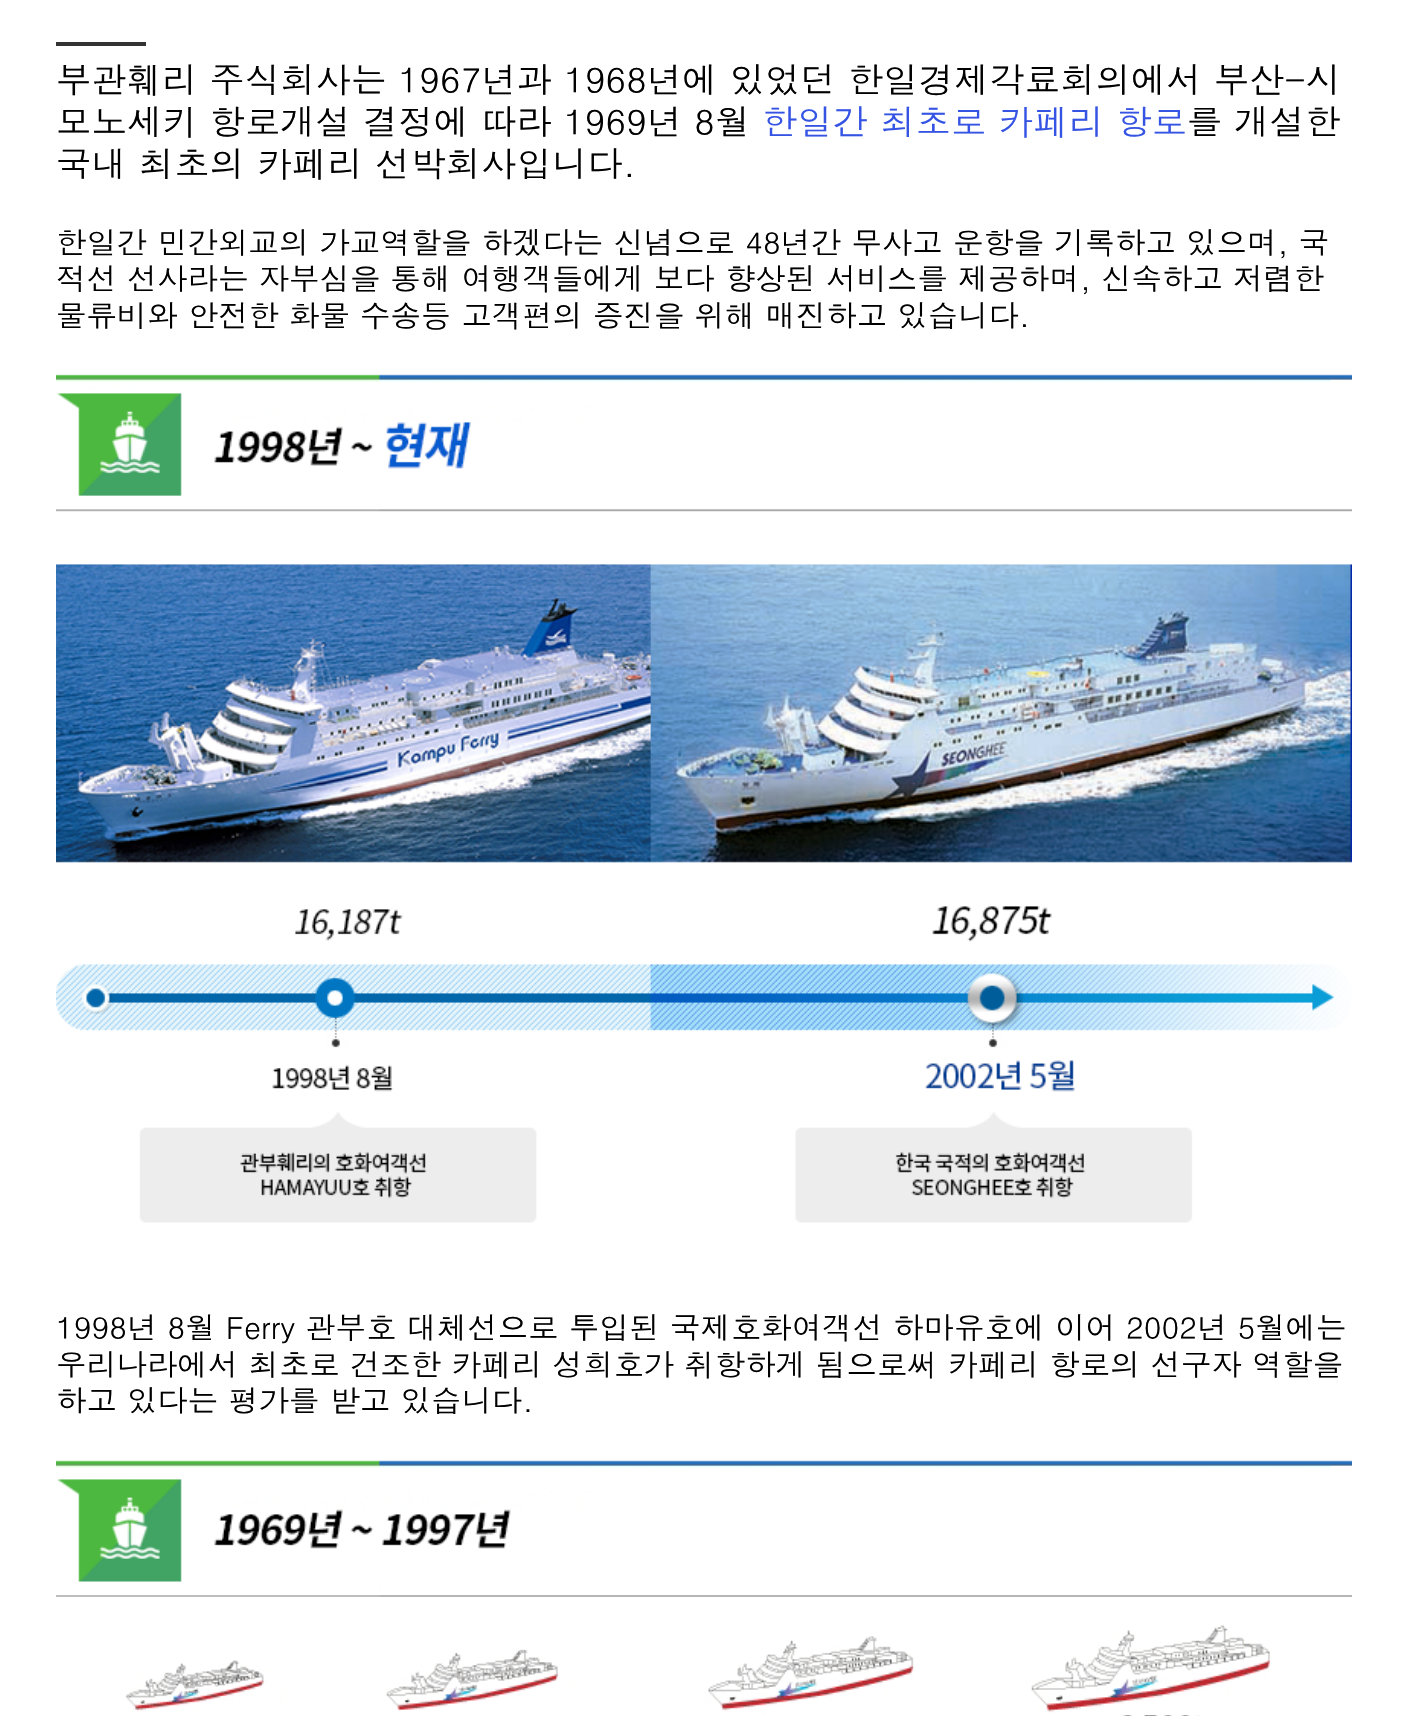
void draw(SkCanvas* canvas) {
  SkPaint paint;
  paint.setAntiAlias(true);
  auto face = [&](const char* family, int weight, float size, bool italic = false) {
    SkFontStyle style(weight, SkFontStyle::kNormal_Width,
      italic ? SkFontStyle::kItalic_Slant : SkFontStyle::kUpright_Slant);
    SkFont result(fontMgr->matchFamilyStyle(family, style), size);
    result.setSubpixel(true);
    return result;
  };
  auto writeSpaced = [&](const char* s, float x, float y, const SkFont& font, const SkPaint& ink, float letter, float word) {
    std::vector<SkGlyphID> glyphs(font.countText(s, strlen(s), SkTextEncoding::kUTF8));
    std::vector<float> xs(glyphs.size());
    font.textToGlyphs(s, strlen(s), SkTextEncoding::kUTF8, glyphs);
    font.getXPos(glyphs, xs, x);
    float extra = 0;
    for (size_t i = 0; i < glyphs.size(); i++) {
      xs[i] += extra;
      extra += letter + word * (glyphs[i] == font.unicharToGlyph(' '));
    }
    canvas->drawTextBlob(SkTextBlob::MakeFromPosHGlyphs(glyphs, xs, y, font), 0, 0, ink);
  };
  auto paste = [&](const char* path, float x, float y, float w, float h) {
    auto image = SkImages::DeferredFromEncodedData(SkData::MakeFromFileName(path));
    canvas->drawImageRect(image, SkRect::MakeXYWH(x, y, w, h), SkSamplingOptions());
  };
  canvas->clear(0xffffffff);
  paint.setColor(0xff333333);
  canvas->drawRect(SkRect::MakeXYWH(56, 42, 90, 4), paint);
  paste("img/1.png", 56, 374, 1296, 849);
  paste("img/2.png", 56, 1460, 1296, 256);
  auto f0 = face("Dotum", 400, 35.2f);
  paint.setColor(0xff000000);
  writeSpaced("부관훼리 주식회사는 1967년과 1968년에 있었던 한일경제각료회의에서 부산-시", 56, 93, f0, paint, 0.2f, 0);
  writeSpaced("모노세키 항로개설 결정에 따라 1969년 8월", 56, 135, f0, paint, 0.2f, 0);
  paint.setColor(0xff3554e3);
  writeSpaced("한일간 최초로 카페리 항로", 762, 135, f0, paint, 0.2f, 0);
  paint.setColor(0xff000000);
  writeSpaced("를 개설한", 1187, 135, f0, paint, 0.2f, 0);
  writeSpaced("국내 최초의 카페리 선박회사입니다.", 56, 177, f0, paint, 0.2f, 0);
  auto f1 = face("Dotum", 400, 30.4f);
  {
    const struct { const char* s; float x, y; } items[] = {
      {"한일간 민간외교의 가교역할을 하겠다는 신념으로 48년간 무사고 운항을 기록하고 있으며, 국", 56, 254},
      {"적선 선사라는 자부심을 통해 여행객들에게 보다 향상된 서비스를 제공하며, 신속하고 저렴한", 56, 290},
      {"물류비와 안전한 화물 수송등 고객편의 증진을 위해 매진하고 있습니다.", 56, 327},
      {"1998년 8월 Ferry 관부호 대체선으로 투입된 국제호화여객선 하마유호에 이어 2002년 5월에는", 56, 1339},
      {"우리나라에서 최초로 건조한 카페리 성희호가 취항하게 됨으로써 카페리 항로의 선구자 역할을", 56, 1376},
      {"하고 있다는 평가를 받고 있습니다.", 56, 1412},
    };
    for (auto [s, x, y] : items) {
      canvas->drawString(s, x, y, f1, paint);
    }
  }
}
